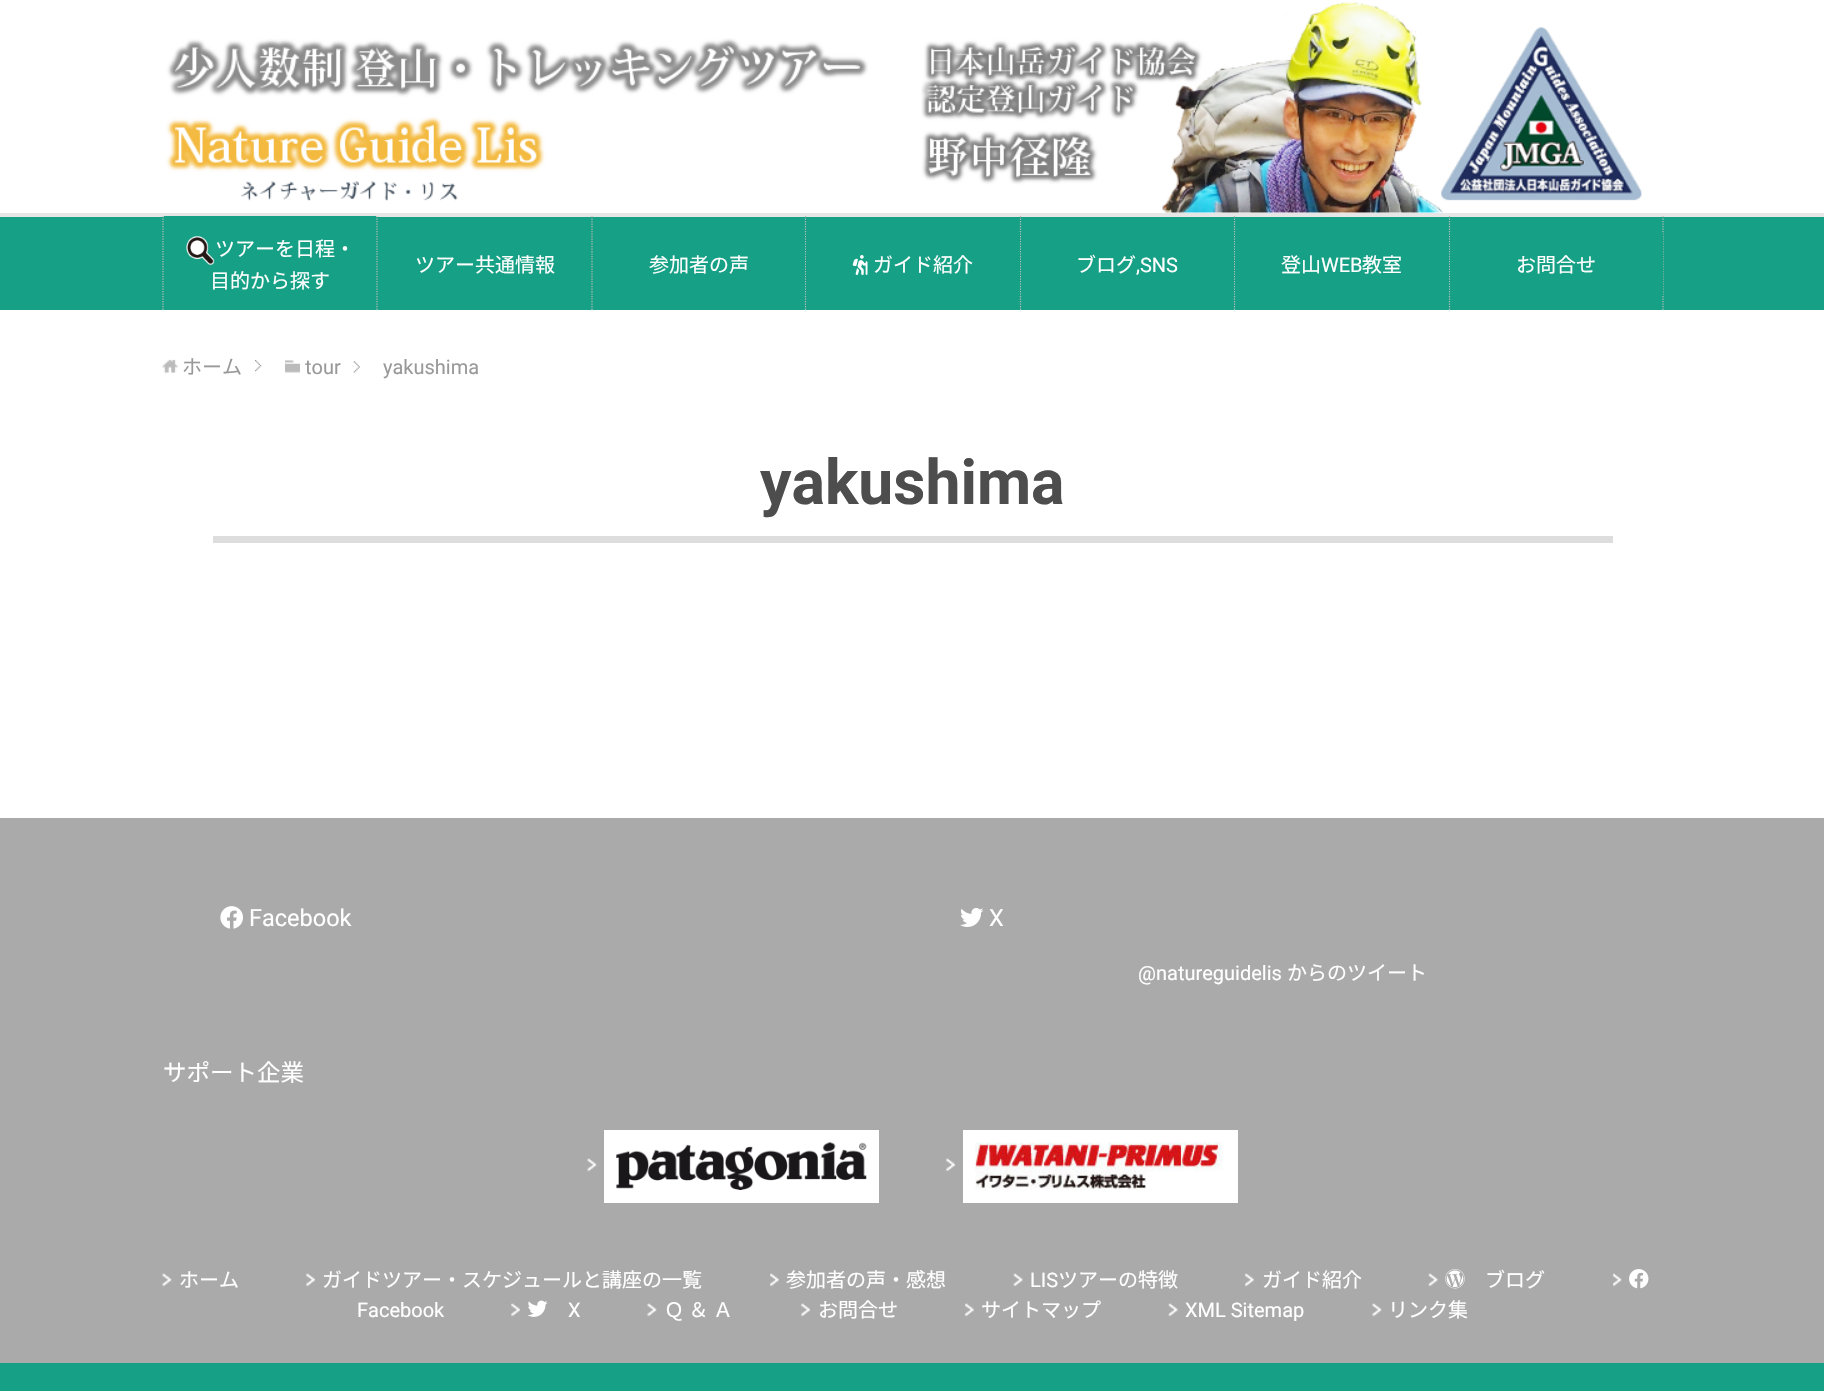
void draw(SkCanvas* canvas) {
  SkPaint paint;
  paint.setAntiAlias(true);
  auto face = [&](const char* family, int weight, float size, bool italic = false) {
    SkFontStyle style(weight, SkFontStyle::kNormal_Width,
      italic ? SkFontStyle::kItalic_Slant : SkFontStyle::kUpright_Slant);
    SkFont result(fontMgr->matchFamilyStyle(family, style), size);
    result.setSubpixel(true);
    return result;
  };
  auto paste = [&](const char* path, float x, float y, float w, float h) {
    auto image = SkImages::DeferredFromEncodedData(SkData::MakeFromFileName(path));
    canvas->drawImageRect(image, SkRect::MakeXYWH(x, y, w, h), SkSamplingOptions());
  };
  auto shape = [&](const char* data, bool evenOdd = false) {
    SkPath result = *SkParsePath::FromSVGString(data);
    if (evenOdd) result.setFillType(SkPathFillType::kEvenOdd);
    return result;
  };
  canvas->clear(0xffffffff);
  paste("img/1.png", 166, 38, 702, 163);
  paste("img/2.png", 921, 2, 721, 211);
  paint.setColor(0xff16a085);
  canvas->drawRect(SkRect::MakeXYWH(0, 217, 1824, 93), paint);
  paint.setColor(0xffe6e6e6);
  canvas->drawRect(SkRect::MakeXYWH(0, 213, 1824, 4), paint);
  paint.setStroke(true);
  paint.setStrokeWidth(1.2f);
  paint.setColor(0xffbcbcbc);
  paint.setPathEffect(SkDashPathEffect::Make({{1.25f, 1.25f}}, 0));
  canvas->drawPath(shape("M163 216V310"), paint);
  paint.setPathEffect(nullptr);
  paint.setPathEffect(SkDashPathEffect::Make({{1.25f, 1.25f}}, 0));
  canvas->drawPath(shape("M377 216V310"), paint);
  paint.setPathEffect(nullptr);
  paint.setStroke(false);
  paint.setColor(0xff16a085);
  canvas->drawRect(SkRect::MakeXYWH(164, 216, 212, 1), paint);
  paste("img/3.png", 186, 236, 29, 29);
  paint.setStroke(true);
  paint.setColor(0xffbcbcbc);
  paint.setPathEffect(SkDashPathEffect::Make({{1.25f, 1.25f}}, 0));
  canvas->drawPath(shape("M592 216V310"), paint);
  paint.setPathEffect(nullptr);
  paint.setPathEffect(SkDashPathEffect::Make({{1.25f, 1.25f}}, 0));
  canvas->drawPath(shape("M805.5 216V310"), paint);
  paint.setPathEffect(nullptr);
  paint.setStroke(false);
  paint.setColor(0xff16a085);
  canvas->drawRect(SkRect::MakeXYWH(804, 233, 1, 62), paint);
  paint.setStroke(true);
  paint.setColor(0xffbcbcbc);
  paint.setPathEffect(SkDashPathEffect::Make({{1.25f, 1.25f}}, 0));
  canvas->drawPath(shape("M1020.5 216V310"), paint);
  paint.setPathEffect(nullptr);
  paint.setStroke(false);
  paint.setColor(0xff16a085);
  canvas->drawRect(SkRect::MakeXYWH(806, 233, 214, 62), paint);
  paste("img/4.png", 852, 255, 16, 20);
  paint.setStroke(true);
  paint.setColor(0xffbcbcbc);
  paint.setPathEffect(SkDashPathEffect::Make({{1.25f, 1.25f}}, 0));
  canvas->drawPath(shape("M1234.5 216V310"), paint);
  paint.setPathEffect(nullptr);
  paint.setStroke(false);
  paint.setColor(0xff16a085);
  canvas->drawRect(SkRect::MakeXYWH(1021, 233, 213, 62), paint);
  paint.setStroke(true);
  paint.setColor(0xffbcbcbc);
  paint.setPathEffect(SkDashPathEffect::Make({{1.25f, 1.25f}}, 0));
  canvas->drawPath(shape("M1449.5 216V310"), paint);
  paint.setPathEffect(nullptr);
  paint.setStroke(false);
  paint.setColor(0xff16a085);
  canvas->drawRect(SkRect::MakeXYWH(1235, 233, 214, 62), paint);
  paint.setStroke(true);
  paint.setColor(0xffbcbcbc);
  paint.setPathEffect(SkDashPathEffect::Make({{1.25f, 1.25f}}, 0));
  canvas->drawPath(shape("M1663 216V310"), paint);
  paint.setPathEffect(nullptr);
  paint.setStroke(false);
  paint.setColor(0xff16a085);
  canvas->drawRect(SkRect::MakeXYWH(1450, 233, 213, 62), paint);
  paste("img/5.png", 255, 360, 7, 12);
  paste("img/6.png", 162, 359, 16, 15);
  paste("img/7.png", 353, 361, 7, 12);
  paste("img/8.png", 285, 360, 15, 13);
  paint.setColor(0xffdddddd);
  canvas->drawRect(SkRect::MakeXYWH(213, 536, 1400, 7), paint);
  paint.setColor(0xffaaaaaa);
  canvas->drawRect(SkRect::MakeXYWH(0, 818, 1824, 545), paint);
  paste("img/9.png", 220, 906, 23, 23);
  paste("img/10.png", 960, 908, 24, 19);
  paint.setColor(0xffffffff);
  canvas->drawRect(SkRect::MakeXYWH(604, 1130, 275, 73), paint);
  canvas->drawRect(SkRect::MakeXYWH(963, 1130, 275, 73), paint);
  paste("img/11.png", 587, 1158, 10, 14);
  paste("img/12.png", 616, 1142, 251, 48);
  paste("img/13.png", 946, 1158, 9, 14);
  paste("img/14.png", 975, 1142, 248, 48);
  paste("img/15.png", 162, 1273, 10, 14);
  paste("img/13.png", 306, 1273, 9, 14);
  paste("img/16.png", 770, 1273, 9, 14);
  paste("img/17.png", 1013, 1273, 10, 14);
  paste("img/16.png", 1245, 1273, 9, 14);
  paste("img/18.png", 1428, 1273, 10, 14);
  paste("img/19.png", 1445, 1269, 20, 20);
  paste("img/20.png", 1613, 1273, 9, 14);
  paste("img/21.png", 1629, 1269, 20, 20);
  paste("img/13.png", 511, 1303, 9, 14);
  paste("img/22.png", 527, 1300, 21, 17);
  paste("img/15.png", 647, 1303, 10, 14);
  paste("img/13.png", 801, 1303, 9, 14);
  paste("img/23.png", 965, 1303, 9, 14);
  paste("img/18.png", 1168, 1303, 10, 14);
  paste("img/15.png", 1372, 1303, 10, 14);
  paint.setColor(0xff16a085);
  canvas->drawRect(SkRect::MakeXYWH(0, 1363, 1824, 28), paint);
  auto f0 = face("Noto Sans JP", 400, 20);
  paint.setColor(0xffffffff);
  {
    const struct { const char* s; float x, y; } items[] = {
      {"ツアーを日程・", 215, 256},
      {"目的から探す", 210, 288},
      {"ツアー共通情報", 415, 272},
      {"参加者の声", 649, 272},
      {"ガイド紹介", 873, 272},
      {"ブログ", 1076, 272},
    };
    for (auto [s, x, y] : items) {
      canvas->drawString(s, x, y, f0, paint);
    }
  }
  auto f1 = face("Roboto", 400, 20);
  canvas->drawString(",SNS", 1136, 272, f1, paint);
  canvas->drawString("登山", 1281, 272, f0, paint);
  canvas->drawString("WEB", 1321, 272, f1, paint);
  canvas->drawString("教室", 1362, 272, f0, paint);
  canvas->drawString("お問合せ", 1516, 272, f0, paint);
  paint.setColor(0xff999999);
  canvas->drawString("ホーム", 182, 374, f0, paint);
  canvas->drawString("tour", 305, 374, f1, paint);
  canvas->drawString("yakushima", 383, 374, f1, paint);
  auto f2 = face("Roboto", 700, 62.5f);
  paint.setColor(0xff4d4d4d);
  canvas->drawString("yakushima", 760, 504, f2, paint);
  auto f3 = face("Roboto", 400, 23.5f);
  paint.setColor(0xffffffff);
  canvas->drawString("Facebook", 249, 926, f3, paint);
  canvas->drawString("X", 989, 926, f3, paint);
  canvas->drawString("@natureguidelis", 1138, 980, f1, paint);
  canvas->drawString("からのツイート", 1287, 980, f0, paint);
  auto f4 = face("Noto Sans JP", 400, 23.5f);
  canvas->drawString("サポート企業", 163, 1081, f4, paint);
  {
    const struct { const char* s; float x, y; } items[] = {
      {"ホーム", 179, 1287},
      {"ガイドツアー・スケジュールと講座の一覧", 322, 1287},
      {"参加者の声・感想", 786, 1287},
    };
    for (auto [s, x, y] : items) {
      canvas->drawString(s, x, y, f0, paint);
    }
  }
  canvas->drawString("LIS", 1030, 1287, f1, paint);
  {
    const struct { const char* s; float x, y; } items[] = {
      {"ツアーの特徴", 1058, 1287},
      {"ガイド紹介", 1262, 1287},
      {"ブログ", 1485, 1287},
    };
    for (auto [s, x, y] : items) {
      canvas->drawString(s, x, y, f0, paint);
    }
  }
  canvas->drawString("Facebook", 357, 1317, f1, paint);
  canvas->drawString("X", 568, 1317, f1, paint);
  {
    const struct { const char* s; float x, y; } items[] = {
      {"Ｑ ＆ Ａ", 664, 1317},
      {"お問合せ", 818, 1317},
      {"サイトマップ", 981, 1317},
    };
    for (auto [s, x, y] : items) {
      canvas->drawString(s, x, y, f0, paint);
    }
  }
  canvas->drawString("XML Sitemap", 1185, 1317, f1, paint);
  canvas->drawString("リンク集", 1388, 1317, f0, paint);
}
